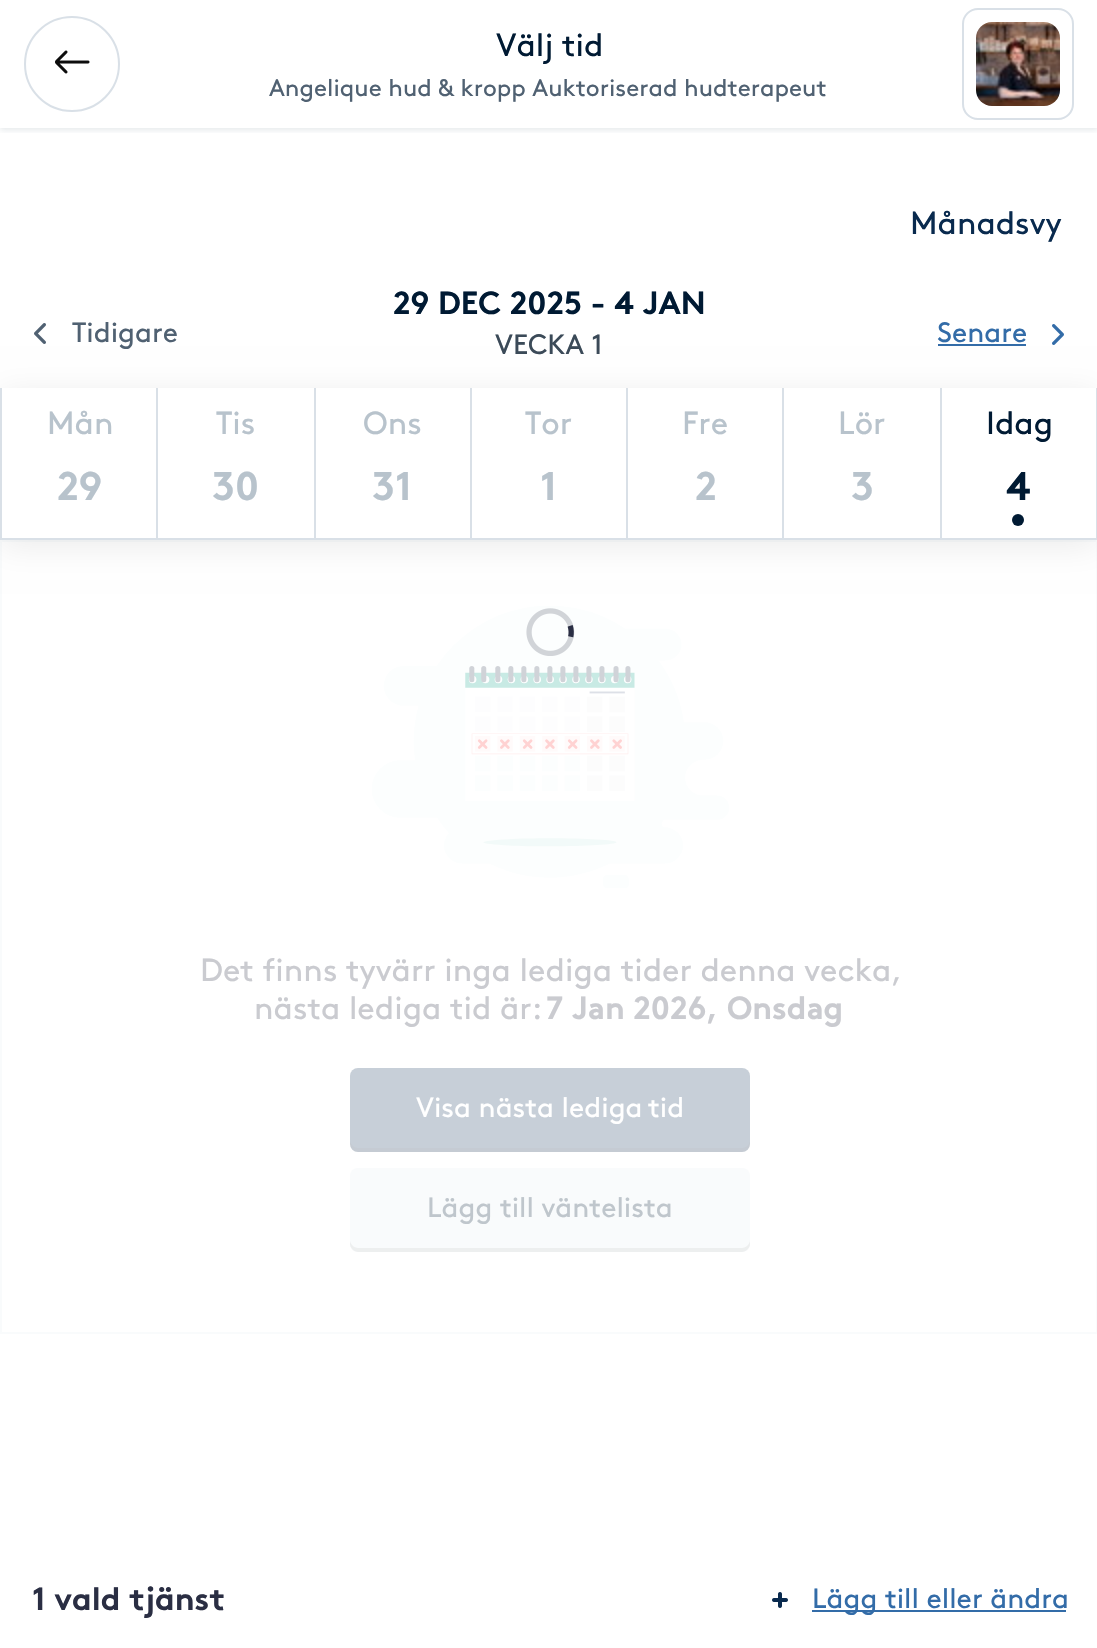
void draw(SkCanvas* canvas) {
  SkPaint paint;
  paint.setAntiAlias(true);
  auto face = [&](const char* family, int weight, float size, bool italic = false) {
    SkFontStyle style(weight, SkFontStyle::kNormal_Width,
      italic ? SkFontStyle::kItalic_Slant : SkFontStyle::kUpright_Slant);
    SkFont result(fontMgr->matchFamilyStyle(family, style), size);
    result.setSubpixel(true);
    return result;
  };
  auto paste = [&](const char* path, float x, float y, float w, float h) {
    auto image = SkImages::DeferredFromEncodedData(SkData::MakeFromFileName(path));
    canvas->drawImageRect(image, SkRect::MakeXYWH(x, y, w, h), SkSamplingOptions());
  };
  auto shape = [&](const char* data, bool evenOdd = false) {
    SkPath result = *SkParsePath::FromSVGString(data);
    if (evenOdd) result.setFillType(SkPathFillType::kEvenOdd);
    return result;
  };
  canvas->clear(0xffffffff);
  canvas->save();
  canvas->clipRect(SkRect::MakeXYWH(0, 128, 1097, 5));
  paint.setColor(0x1a001a33);
  paint.setMaskFilter(SkMaskFilter::MakeBlur(kNormal_SkBlurStyle, 3));
  canvas->drawRect(SkRect::MakeXYWH(0, 2, 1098, 128), paint);
  paint.setMaskFilter(nullptr);
  canvas->restore();
  paint.setStroke(true);
  paint.setStrokeWidth(2);
  paint.setColor(0xffd9e0e7);
  canvas->drawCircle(72, 64, 47, paint);
  paste("img/1.png", 55, 50, 35, 24);
  canvas->drawRoundRect(SkRect::MakeXYWH(963, 9, 110, 110), 15, 15, paint);
  paste("img/2.png", 976, 22, 84, 84);
  paint.setColor(0xfff9fbfc);
  canvas->drawRect(SkRect::MakeXYWH(1, 541, 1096, 792), paint);
  canvas->save();
  canvas->clipPath(shape("M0 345H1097V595H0ZM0 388H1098V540H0Z", true), true);
  paint.setStroke(false);
  paint.setColor(0x14000000);
  paint.setMaskFilter(SkMaskFilter::MakeBlur(kNormal_SkBlurStyle, 16));
  canvas->drawRect(SkRect::MakeXYWH(0, 394, 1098, 152), paint);
  paint.setMaskFilter(nullptr);
  canvas->restore();
  paste("img/3.png", 34, 323, 12, 21);
  paint.setColor(0xff336ca8);
  canvas->drawRect(SkRect::MakeXYWH(938, 344, 88, 2), paint);
  paste("img/4.png", 1052, 324, 12, 21);
  {
    const struct { float x, y, w, h; SkColor color; } items[] = {
      {0, 538, 940, 2, 0xffd9e0e7},
      {0, 388, 2, 152, 0xffd9e0e7},
      {156, 388, 2, 152, 0xffd9e0e7},
      {314, 388, 2, 152, 0xffd9e0e7},
      {470, 388, 2, 152, 0xffd9e0e7},
      {626, 388, 2, 152, 0xffd9e0e7},
      {782, 388, 2, 152, 0xffd9e0e7},
      {1096, 388, 1, 152, 0xffd9e0e7},
      {940, 538, 157, 2, 0xffd9e0e7},
      {940, 388, 2, 152, 0xffd9e0e7},
    };
    for (auto [x, y, w, h, color] : items) {
      paint.setColor(color);
      canvas->drawRect(SkRect::MakeXYWH(x, y, w, h), paint);
    }
  }
  paint.setColor(0xff001a33);
  canvas->drawCircle(1018, 520, 6, paint);
  paste("img/6.png", 372, 606, 357, 282);
  paste("img/5.png", 526, 608, 49, 48);
  paint.setColor(0xffc7cfd8);
  canvas->drawRoundRect(SkRect::MakeXYWH(350, 1068, 400, 84), 8, 8, paint);
  paint.setColor(0x33bfbfbf);
  canvas->drawPath(shape("M350 1140V1144C350 1148 354 1152 358 1152H742C746 1152 750 1148 750 1144V1140C750 1144 746 1148 742 1148H358C354 1148 350 1144 350 1140Z"), paint);
  paint.setColor(0xfff9fbfc);
  canvas->drawRoundRect(SkRect::MakeXYWH(350, 1168, 400, 84), 8, 8, paint);
  paint.setColor(0x33bfbfbf);
  canvas->drawPath(shape("M350 1240V1244C350 1248 354 1252 358 1252H742C746 1252 750 1248 750 1244V1240C750 1244 746 1248 742 1248H358C354 1248 350 1244 350 1240Z"), paint);
  paste("img/7.png", 772, 1592, 16, 16);
  paint.setColor(0xff336ca8);
  canvas->drawRect(SkRect::MakeXYWH(812, 1610, 254, 2), paint);
  auto f0 = face("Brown", 400, 32);
  paint.setColor(0xff001a33);
  canvas->drawString("Välj tid", 496, 56, f0, paint);
  auto f1 = face("Brown", 400, 24);
  paint.setColor(0xff506172);
  canvas->drawString("Angelique hud & kropp Auktoriserad hudterapeut", 269, 96, f1, paint);
  paint.setColor(0xff092a4e);
  canvas->drawString("Månadsvy", 910, 234, f0, paint);
  auto f2 = face("Brown", 700, 32);
  paint.setColor(0xff001a33);
  canvas->drawString("29 DEC 2025 - 4 JAN", 393, 314, f2, paint);
  auto f3 = face("Brown", 400, 28);
  paint.setColor(0xff3b4a58);
  canvas->drawString("VECKA 1", 495, 354, f3, paint);
  paint.setColor(0xff506172);
  canvas->drawString("Tidigare", 72, 342, f3, paint);
  paint.setColor(0xff336ca8);
  canvas->drawString("Senare", 937, 342, f3, paint);
  paint.setColor(0xffb8c3cc);
  canvas->drawString("Mån", 47, 434, f0, paint);
  auto f4 = face("Brown", 700, 40);
  canvas->drawString("29", 57, 500, f4, paint);
  canvas->drawString("Tis", 216, 434, f0, paint);
  canvas->drawString("30", 212, 500, f4, paint);
  canvas->drawString("Ons", 363, 434, f0, paint);
  canvas->drawString("31", 372, 500, f4, paint);
  canvas->drawString("Tor", 525, 434, f0, paint);
  canvas->drawString("1", 540, 500, f4, paint);
  canvas->drawString("Fre", 682, 434, f0, paint);
  canvas->drawString("2", 695, 500, f4, paint);
  canvas->drawString("Lör", 838, 434, f0, paint);
  canvas->drawString("3", 851, 500, f4, paint);
  paint.setColor(0xff001a33);
  canvas->drawString("Idag", 986, 434, f0, paint);
  canvas->drawString("4", 1006, 500, f4, paint);
  paint.setColor(0xffcacbd0);
  canvas->drawString("Det finns tyvärr inga lediga tider denna vecka,", 200, 981, f0, paint);
  canvas->drawString("nästa lediga tid är:", 254, 1019, f0, paint);
  auto f5 = face("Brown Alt", 700, 32);
  canvas->drawString("7 Jan 2026, Onsdag", 546, 1019, f5, paint);
  paint.setColor(0xffffffff);
  canvas->drawString("Visa nästa lediga", 416, 1117, f3, paint);
  canvas->drawString("tid", 648, 1117, f3, paint);
  paint.setColor(0xffbfc6cc);
  canvas->drawString("Lägg till väntelista", 427, 1217, f3, paint);
  paint.setColor(0xff2a2e43);
  canvas->drawString("1 vald tjänst", 32, 1610, f2, paint);
  paint.setColor(0xff336ca8);
  canvas->drawString("Lägg till eller ändra", 812, 1608, f3, paint);
}
